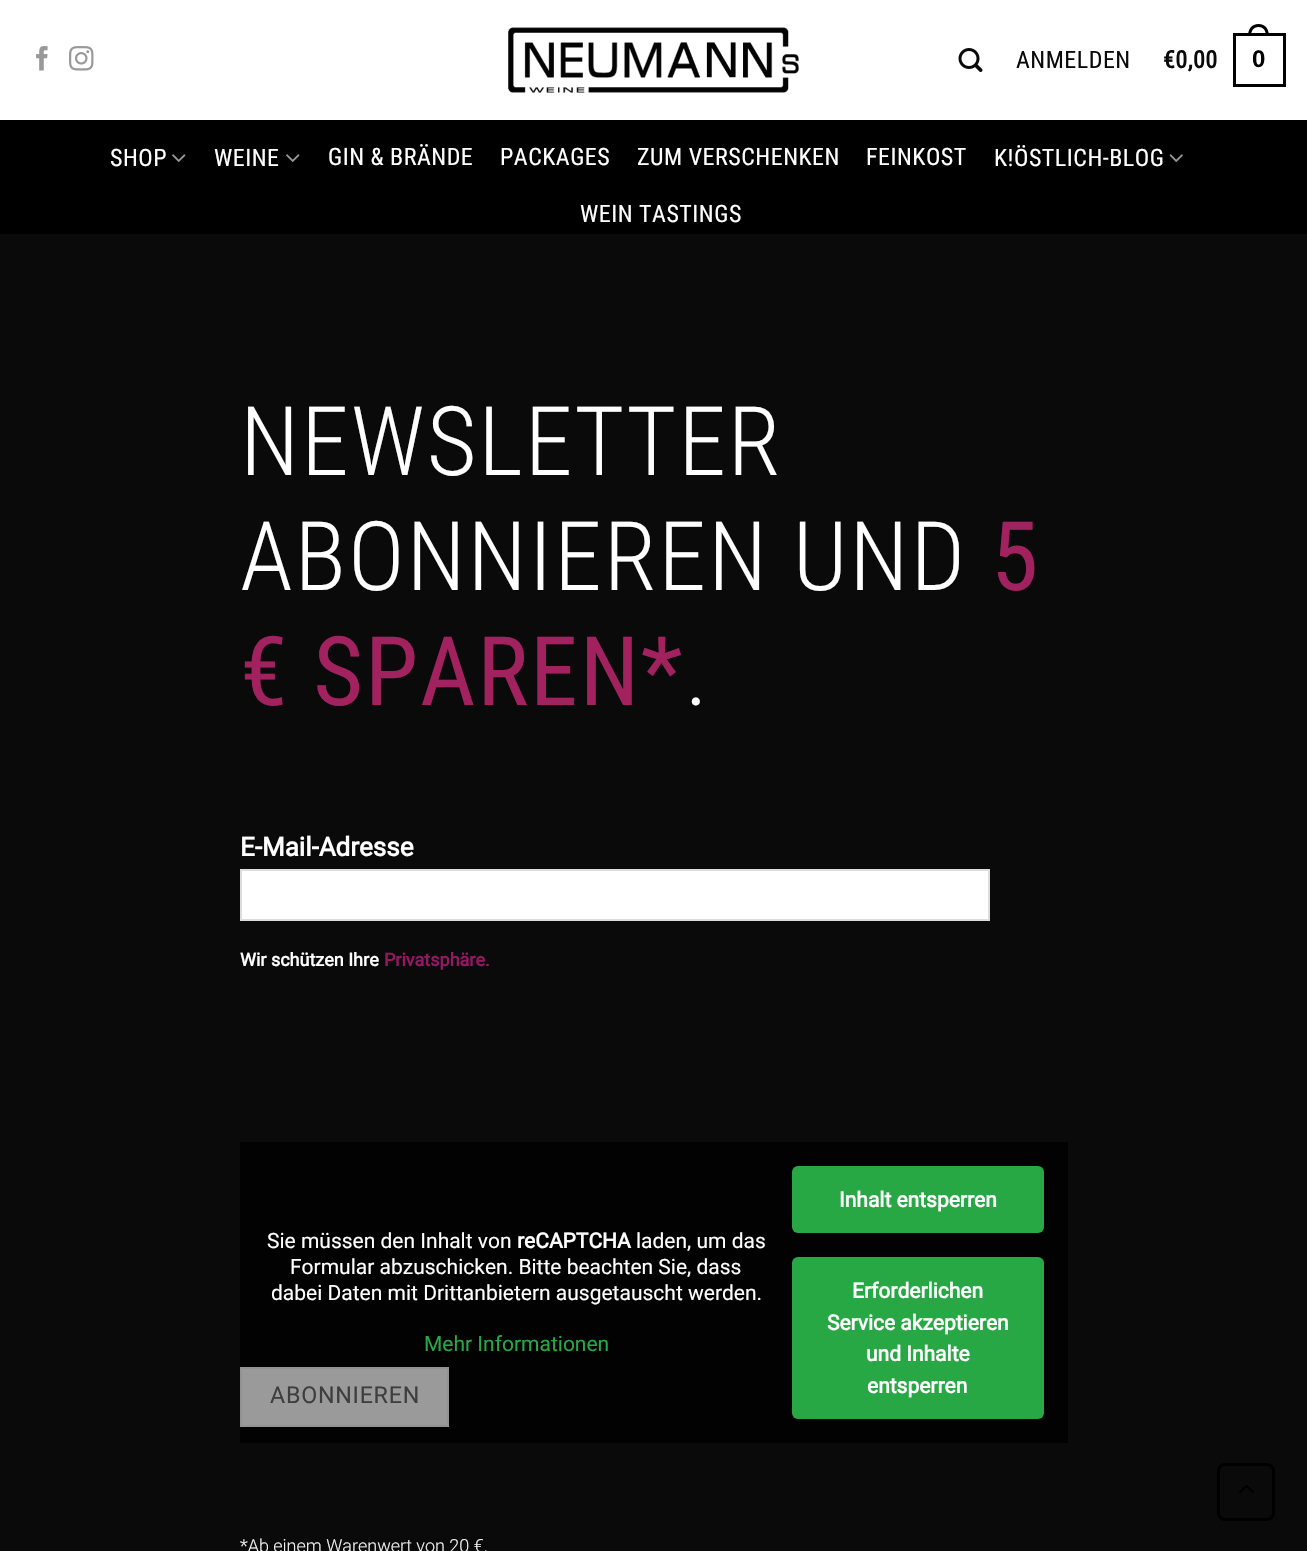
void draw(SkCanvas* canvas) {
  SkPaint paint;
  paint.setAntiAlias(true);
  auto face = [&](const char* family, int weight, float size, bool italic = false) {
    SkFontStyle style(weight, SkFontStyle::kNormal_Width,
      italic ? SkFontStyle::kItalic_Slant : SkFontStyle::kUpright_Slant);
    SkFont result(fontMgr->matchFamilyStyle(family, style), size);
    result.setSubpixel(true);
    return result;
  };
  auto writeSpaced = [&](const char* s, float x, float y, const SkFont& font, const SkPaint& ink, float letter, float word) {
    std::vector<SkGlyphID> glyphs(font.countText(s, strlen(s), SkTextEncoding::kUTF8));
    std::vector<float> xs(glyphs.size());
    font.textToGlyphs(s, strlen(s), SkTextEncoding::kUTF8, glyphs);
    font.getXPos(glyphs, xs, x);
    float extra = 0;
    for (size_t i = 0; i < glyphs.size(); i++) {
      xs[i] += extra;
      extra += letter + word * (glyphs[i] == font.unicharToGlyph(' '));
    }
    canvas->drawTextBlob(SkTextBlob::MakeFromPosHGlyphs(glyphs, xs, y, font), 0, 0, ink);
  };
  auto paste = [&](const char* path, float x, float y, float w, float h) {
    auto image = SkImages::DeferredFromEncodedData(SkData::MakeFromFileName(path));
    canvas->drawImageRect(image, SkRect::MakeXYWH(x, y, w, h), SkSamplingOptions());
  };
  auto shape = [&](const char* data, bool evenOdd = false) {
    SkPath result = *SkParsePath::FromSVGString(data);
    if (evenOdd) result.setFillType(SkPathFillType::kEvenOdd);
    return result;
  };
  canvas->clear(0xff0a0a0a);
  paint.setColor(0xffffffff);
  canvas->drawRect(SkRect::MakeXYWH(0, 0, 1307, 120), paint);
  paste("img/1.png", 36, 46, 12, 25);
  paste("img/2.png", 69, 46, 25, 25);
  paste("img/3.png", 508, 27, 291, 66);
  paste("img/4.png", 958, 48, 25, 24);
  paint.setStroke(true);
  paint.setStrokeWidth(3);
  paint.setColor(0xff000000);
  canvas->drawRect(SkRect::MakeXYWH(1234.5f, 34.5f, 50, 51), paint);
  paint.setStroke(false);
  canvas->drawPath(shape("M1258.5 24C1265.5 24 1269 29.5 1269 36H1248C1248 29.5 1251.5 24 1258.5 24ZM1258.5 27C1264 27 1266 31.5 1266 36H1251C1251 31.5 1253 27 1258.5 27Z", true), paint);
  canvas->drawRect(SkRect::MakeXYWH(0, 120, 1307, 114), paint);
  paste("img/5.png", 172, 154, 14, 8);
  paste("img/5.png", 286, 154, 14, 8);
  paste("img/6.png", 1169, 154, 14, 8);
  paint.setColor(0xff020202);
  canvas->drawRect(SkRect::MakeXYWH(240, 1142, 828, 301), paint);
  paint.setColor(0xffffffff);
  canvas->drawRect(SkRect::MakeXYWH(241, 870, 748, 50), paint);
  paint.setStroke(true);
  paint.setStrokeWidth(2);
  paint.setColor(0xffdddddd);
  canvas->drawRect(SkRect::MakeXYWH(241, 870, 748, 50), paint);
  paint.setStroke(false);
  paint.setColor(0xff28a745);
  canvas->drawRoundRect(SkRect::MakeXYWH(792, 1166, 252, 67), 6, 6, paint);
  canvas->drawRoundRect(SkRect::MakeXYWH(792, 1257, 252, 162), 6, 6, paint);
  paint.setColor(0xff9a9a9a);
  canvas->drawRect(SkRect::MakeXYWH(241, 1368, 207, 58), paint);
  paint.setStroke(true);
  paint.setColor(0xff929292);
  canvas->drawRect(SkRect::MakeXYWH(241, 1368, 207, 58), paint);
  paint.setStrokeWidth(3);
  paint.setColor(0xff000000);
  canvas->drawRoundRect(SkRect::MakeXYWH(1218.5f, 1464.5f, 55, 55), 6.5f, 6.5f, paint);
  paste("img/7.png", 1239, 1485, 15, 8);
  auto f0 = face("Roboto Condensed", 400, 24);
  paint.setStroke(false);
  paint.setColor(0xff0a0a0a);
  writeSpaced("ANMELDEN", 1016, 68, f0, paint, 0.5f, 0);
  auto f1 = face("Roboto Condensed", 700, 24);
  writeSpaced("€0,00", 1163, 68, f1, paint, 0.5f, 0);
  auto f2 = face("Liberation Sans", 700, 24);
  paint.setColor(0xff000000);
  writeSpaced("0", 1252, 67, f2, paint, 0.5f, 0);
  paint.setColor(0xffffffff);
  {
    const struct { const char* s; float x, y; } items[] = {
      {"SHOP", 110, 166},
      {"WEINE", 214, 166},
      {"GIN & BRÄNDE", 328, 165},
      {"PACKAGES", 500, 165},
      {"ZUM VERSCHENKEN", 637, 165},
      {"FEINKOST", 866, 165},
      {"K!ÖSTLICH-BLOG", 994, 166},
      {"WEIN TASTINGS", 580, 222},
    };
    for (auto [s, x, y] : items) {
      writeSpaced(s, x, y, f0, paint, 0.5f, 0);
    }
  }
  auto f3 = face("Roboto Condensed", 300, 96);
  writeSpaced("NEWSLETTER", 240, 475, f3, paint, 1.9f, 0);
  writeSpaced("ABONNIEREN UND", 240, 590, f3, paint, 1.9f, 0);
  auto f4 = face("Roboto Condensed", 400, 96);
  paint.setColor(0xffa2215f);
  writeSpaced("5", 991, 590, f4, paint, 1.9f, 0);
  writeSpaced("€ SPAREN*", 240, 705, f4, paint, 1.9f, 0);
  paint.setColor(0xffffffff);
  writeSpaced(".", 685, 705, f3, paint, 1.9f, 0);
  auto f5 = face("Roboto", 700, 26);
  canvas->drawString("E-Mail-Adresse", 240, 856, f5, paint);
  auto f6 = face("Roboto", 700, 18);
  canvas->drawString("Wir schützen Ihre", 240, 966, f6, paint);
  paint.setColor(0xff961864);
  canvas->drawString("Privatsphäre.", 384, 966, f6, paint);
  auto f7 = face("Roboto", 400, 21);
  paint.setColor(0xffffffff);
  canvas->drawString("Sie müssen den Inhalt von", 267, 1248, f7, paint);
  auto f8 = face("Roboto", 700, 21);
  canvas->drawString("reCAPTCHA", 517, 1248, f8, paint);
  {
    const struct { const char* s; float x, y; } items[] = {
      {"laden, um das", 636, 1248},
      {"Formular abzuschicken. Bitte beachten Sie, dass", 290, 1274},
      {"dabei Daten mit Drittanbietern ausgetauscht werden.", 271, 1300},
    };
    for (auto [s, x, y] : items) {
      canvas->drawString(s, x, y, f7, paint);
    }
  }
  paint.setColor(0xff28a745);
  canvas->drawString("Mehr Informationen", 424, 1351, f7, paint);
  paint.setColor(0xffffffff);
  {
    const struct { const char* s; float x, y; } items[] = {
      {"Inhalt entsperren", 839, 1207},
      {"Erforderlichen", 852, 1298},
      {"Service akzeptieren", 827, 1330},
      {"und Inhalte", 866, 1361},
      {"entsperren", 867, 1393},
    };
    for (auto [s, x, y] : items) {
      canvas->drawString(s, x, y, f8, paint);
    }
  }
  auto f9 = face("Roboto", 400, 23.25f);
  paint.setColor(0xff3e3e3e);
  writeSpaced("ABONNIEREN", 270, 1403, f9, paint, 0.75f, 0);
  auto f10 = face("Roboto", 300, 18);
  paint.setColor(0xfff1f1f1);
  canvas->drawString("*Ab einem Warenwert von 20 €.", 240, 1552, f10, paint);
}
